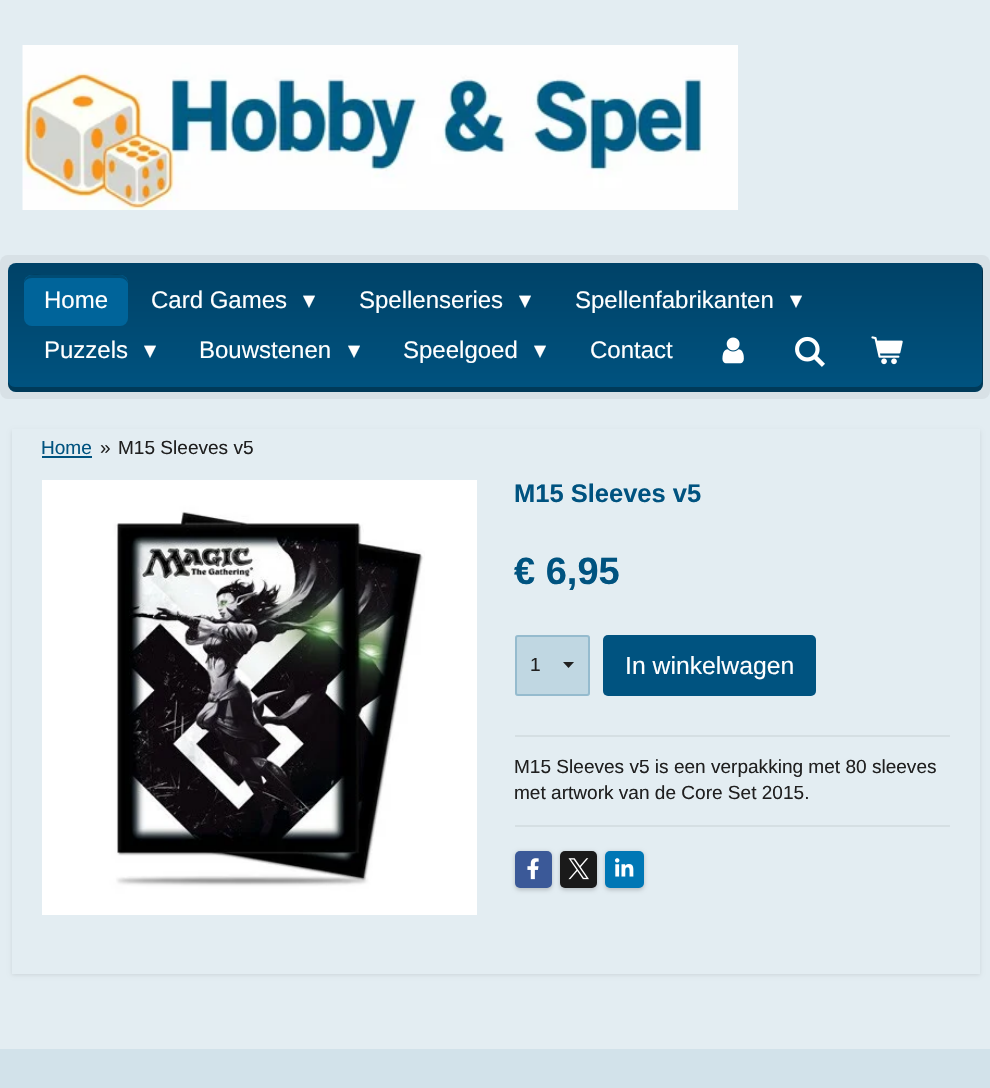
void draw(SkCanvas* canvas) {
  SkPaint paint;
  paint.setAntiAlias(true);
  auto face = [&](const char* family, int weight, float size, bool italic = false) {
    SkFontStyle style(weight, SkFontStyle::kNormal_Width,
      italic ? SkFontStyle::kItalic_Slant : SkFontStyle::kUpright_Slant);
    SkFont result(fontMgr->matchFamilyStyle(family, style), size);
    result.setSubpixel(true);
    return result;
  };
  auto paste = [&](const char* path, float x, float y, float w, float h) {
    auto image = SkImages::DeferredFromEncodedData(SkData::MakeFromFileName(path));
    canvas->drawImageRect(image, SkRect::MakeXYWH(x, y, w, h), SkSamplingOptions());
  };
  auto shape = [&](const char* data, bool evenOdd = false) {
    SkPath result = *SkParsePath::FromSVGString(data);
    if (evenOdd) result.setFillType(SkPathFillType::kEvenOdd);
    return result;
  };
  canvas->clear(0xffe3edf2);
  paste("img/1.png", 22, 45, 716, 165);
  paint.setColor(0xffd8e1e6);
  canvas->drawRoundRect(SkRect::MakeXYWH(0, 255, 990, 144), 8, 8, paint);
  {
    const SkColor colors[] = {0xff004267, 0xff005380};
    const float stops[] = {0, 1};
    const SkPoint ends[] = {{495, 262}, {495, 392}};
    paint.setShader(SkGradientShader::MakeLinear(ends, colors, stops, 2, SkTileMode::kClamp));
    paint.setAlpha(255);
  }
  canvas->drawRoundRect(SkRect::MakeXYWH(8, 263, 975, 129), 8, 8, paint);
  paint.setShader(nullptr);
  paint.setColor(0x4d000000);
  canvas->drawPath(shape("M8 380V384C8 388 12 392 16 392H975C979 392 983 388 983 384V271C983 270 983 268 982 267V380C982 384 979 387 975 387H15C11 387 8 384 8 380Z"), paint);
  paint.setColor(0xff00649a);
  canvas->drawRoundRect(SkRect::MakeXYWH(24, 275, 104, 51), 8, 8, paint);
  paint.setColor(0x40000000);
  canvas->drawPath(shape("M32 278H120C124 278 128 281 128 285C128 272 116 275 105 275H47C36 275 24 272 24 285C24 281 27 278 32 278Z"), paint);
  paste("img/2.png", 722, 337, 22, 27);
  paste("img/3.png", 795, 336, 30, 31);
  paste("img/4.png", 871, 336, 32, 29);
  canvas->save();
  canvas->clipPath(shape("M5 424H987V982H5ZM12 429H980V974H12Z", true), true);
  paint.setColor(0x1a000000);
  paint.setMaskFilter(SkMaskFilter::MakeBlur(kNormal_SkBlurStyle, 2));
  canvas->drawRect(SkRect::MakeXYWH(12, 431, 968, 544), paint);
  paint.setMaskFilter(nullptr);
  canvas->restore();
  paint.setColor(0xffe3edf2);
  canvas->drawRoundRect(SkRect::MakeXYWH(12, 429, 968, 545), 8, 8, paint);
  paint.setColor(0xff005380);
  canvas->drawRect(SkRect::MakeXYWH(42, 456, 50, 2), paint);
  paste("img/5.png", 42, 480, 435, 435);
  paint.setColor(0xffc0d7e2);
  canvas->drawRoundRect(SkRect::MakeXYWH(515, 635, 75, 61), 3, 3, paint);
  canvas->save();
  canvas->clipRect(SkRect::MakeXYWH(563, 662, 12, 7));
  paint.setColor(0xff202020);
  canvas->drawPath(shape("M568.5 668L562.5 661.5H574.5Z"), paint);
  canvas->restore();
  paint.setStroke(true);
  paint.setStrokeWidth(2);
  paint.setColor(0x80699fb9);
  canvas->drawRoundRect(SkRect::MakeXYWH(516, 636, 73, 59), 2, 2, paint);
  paint.setStroke(false);
  paint.setColor(0xff005380);
  canvas->drawRoundRect(SkRect::MakeXYWH(603, 635, 213, 61), 5, 5, paint);
  paint.setColor(0xffd5dfe3);
  canvas->drawRect(SkRect::MakeXYWH(515, 735, 435, 2), paint);
  canvas->drawRect(SkRect::MakeXYWH(515, 825, 435, 2), paint);
  paint.setColor(0x33000000);
  paint.setMaskFilter(SkMaskFilter::MakeBlur(kNormal_SkBlurStyle, 2));
  canvas->drawRoundRect(SkRect::MakeXYWH(515, 852, 37, 38), 5, 5, paint);
  paint.setMaskFilter(nullptr);
  paint.setColor(0xff3b5998);
  canvas->drawRoundRect(SkRect::MakeXYWH(515, 851, 37, 37), 5, 5, paint);
  paste("img/6.png", 527, 858, 12, 22);
  paint.setColor(0x33000000);
  paint.setMaskFilter(SkMaskFilter::MakeBlur(kNormal_SkBlurStyle, 2));
  canvas->drawRoundRect(SkRect::MakeXYWH(560, 852, 37, 38), 5, 5, paint);
  paint.setMaskFilter(nullptr);
  paint.setColor(0xff1a1a1a);
  canvas->drawRoundRect(SkRect::MakeXYWH(560, 851, 37, 37), 5, 5, paint);
  paste("img/7.png", 568, 858, 21, 22);
  paint.setColor(0x33000000);
  paint.setMaskFilter(SkMaskFilter::MakeBlur(kNormal_SkBlurStyle, 2));
  canvas->drawRoundRect(SkRect::MakeXYWH(605, 852, 39, 38), 5, 5, paint);
  paint.setMaskFilter(nullptr);
  paint.setColor(0xff0077b5);
  canvas->drawRoundRect(SkRect::MakeXYWH(605, 851, 39, 37), 5, 5, paint);
  paste("img/8.png", 615, 858, 19, 19);
  paint.setColor(0xffd2e2ea);
  canvas->drawRect(SkRect::MakeXYWH(0, 1049, 990, 39), paint);
  auto f0 = face("Liberation Sans", 400, 24);
  paint.setColor(0xffffffff);
  canvas->drawString("Home", 44, 308, f0, paint);
  canvas->drawString("Card Games", 151, 308, f0, paint);
  auto f1 = face("DejaVu Sans", 400, 24);
  canvas->drawString("▾", 303, 308, f1, paint);
  canvas->drawString("Spellenseries", 359, 308, f0, paint);
  canvas->drawString("▾", 519, 308, f1, paint);
  canvas->drawString("Spellenfabrikanten", 575, 308, f0, paint);
  canvas->drawString("▾", 790, 308, f1, paint);
  canvas->drawString("Puzzels", 44, 358, f0, paint);
  canvas->drawString("▾", 144, 358, f1, paint);
  canvas->drawString("Bouwstenen", 199, 358, f0, paint);
  canvas->drawString("▾", 348, 358, f1, paint);
  canvas->drawString("Speelgoed", 403, 358, f0, paint);
  canvas->drawString("▾", 534, 358, f1, paint);
  canvas->drawString("Contact", 590, 358, f0, paint);
  auto f2 = face("Liberation Sans", 400, 19.05f);
  paint.setColor(0xff005380);
  canvas->drawString("Home", 41, 454, f2, paint);
  paint.setColor(0xff202020);
  canvas->drawString("»", 100, 454, f2, paint);
  canvas->drawString("M15 Sleeves v5", 118, 454, f2, paint);
  auto f3 = face("Liberation Sans", 700, 25.5f);
  paint.setColor(0xff005380);
  canvas->drawString("M15 Sleeves v5", 514, 502, f3, paint);
  auto f4 = face("Liberation Sans", 700, 38);
  canvas->drawString("€ 6,95", 514, 584, f4, paint);
  paint.setColor(0xff202020);
  canvas->drawString("1", 530, 671, f2, paint);
  auto f5 = face("Liberation Sans", 400, 24.75f);
  paint.setColor(0xffffffff);
  canvas->drawString("In winkelwagen", 625, 674, f5, paint);
  paint.setColor(0xff202020);
  canvas->drawString("M15 Sleeves v5 is een verpakking met 80 sleeves", 514, 773, f2, paint);
  canvas->drawString("met artwork van de Core Set 2015.", 514, 799, f2, paint);
}
